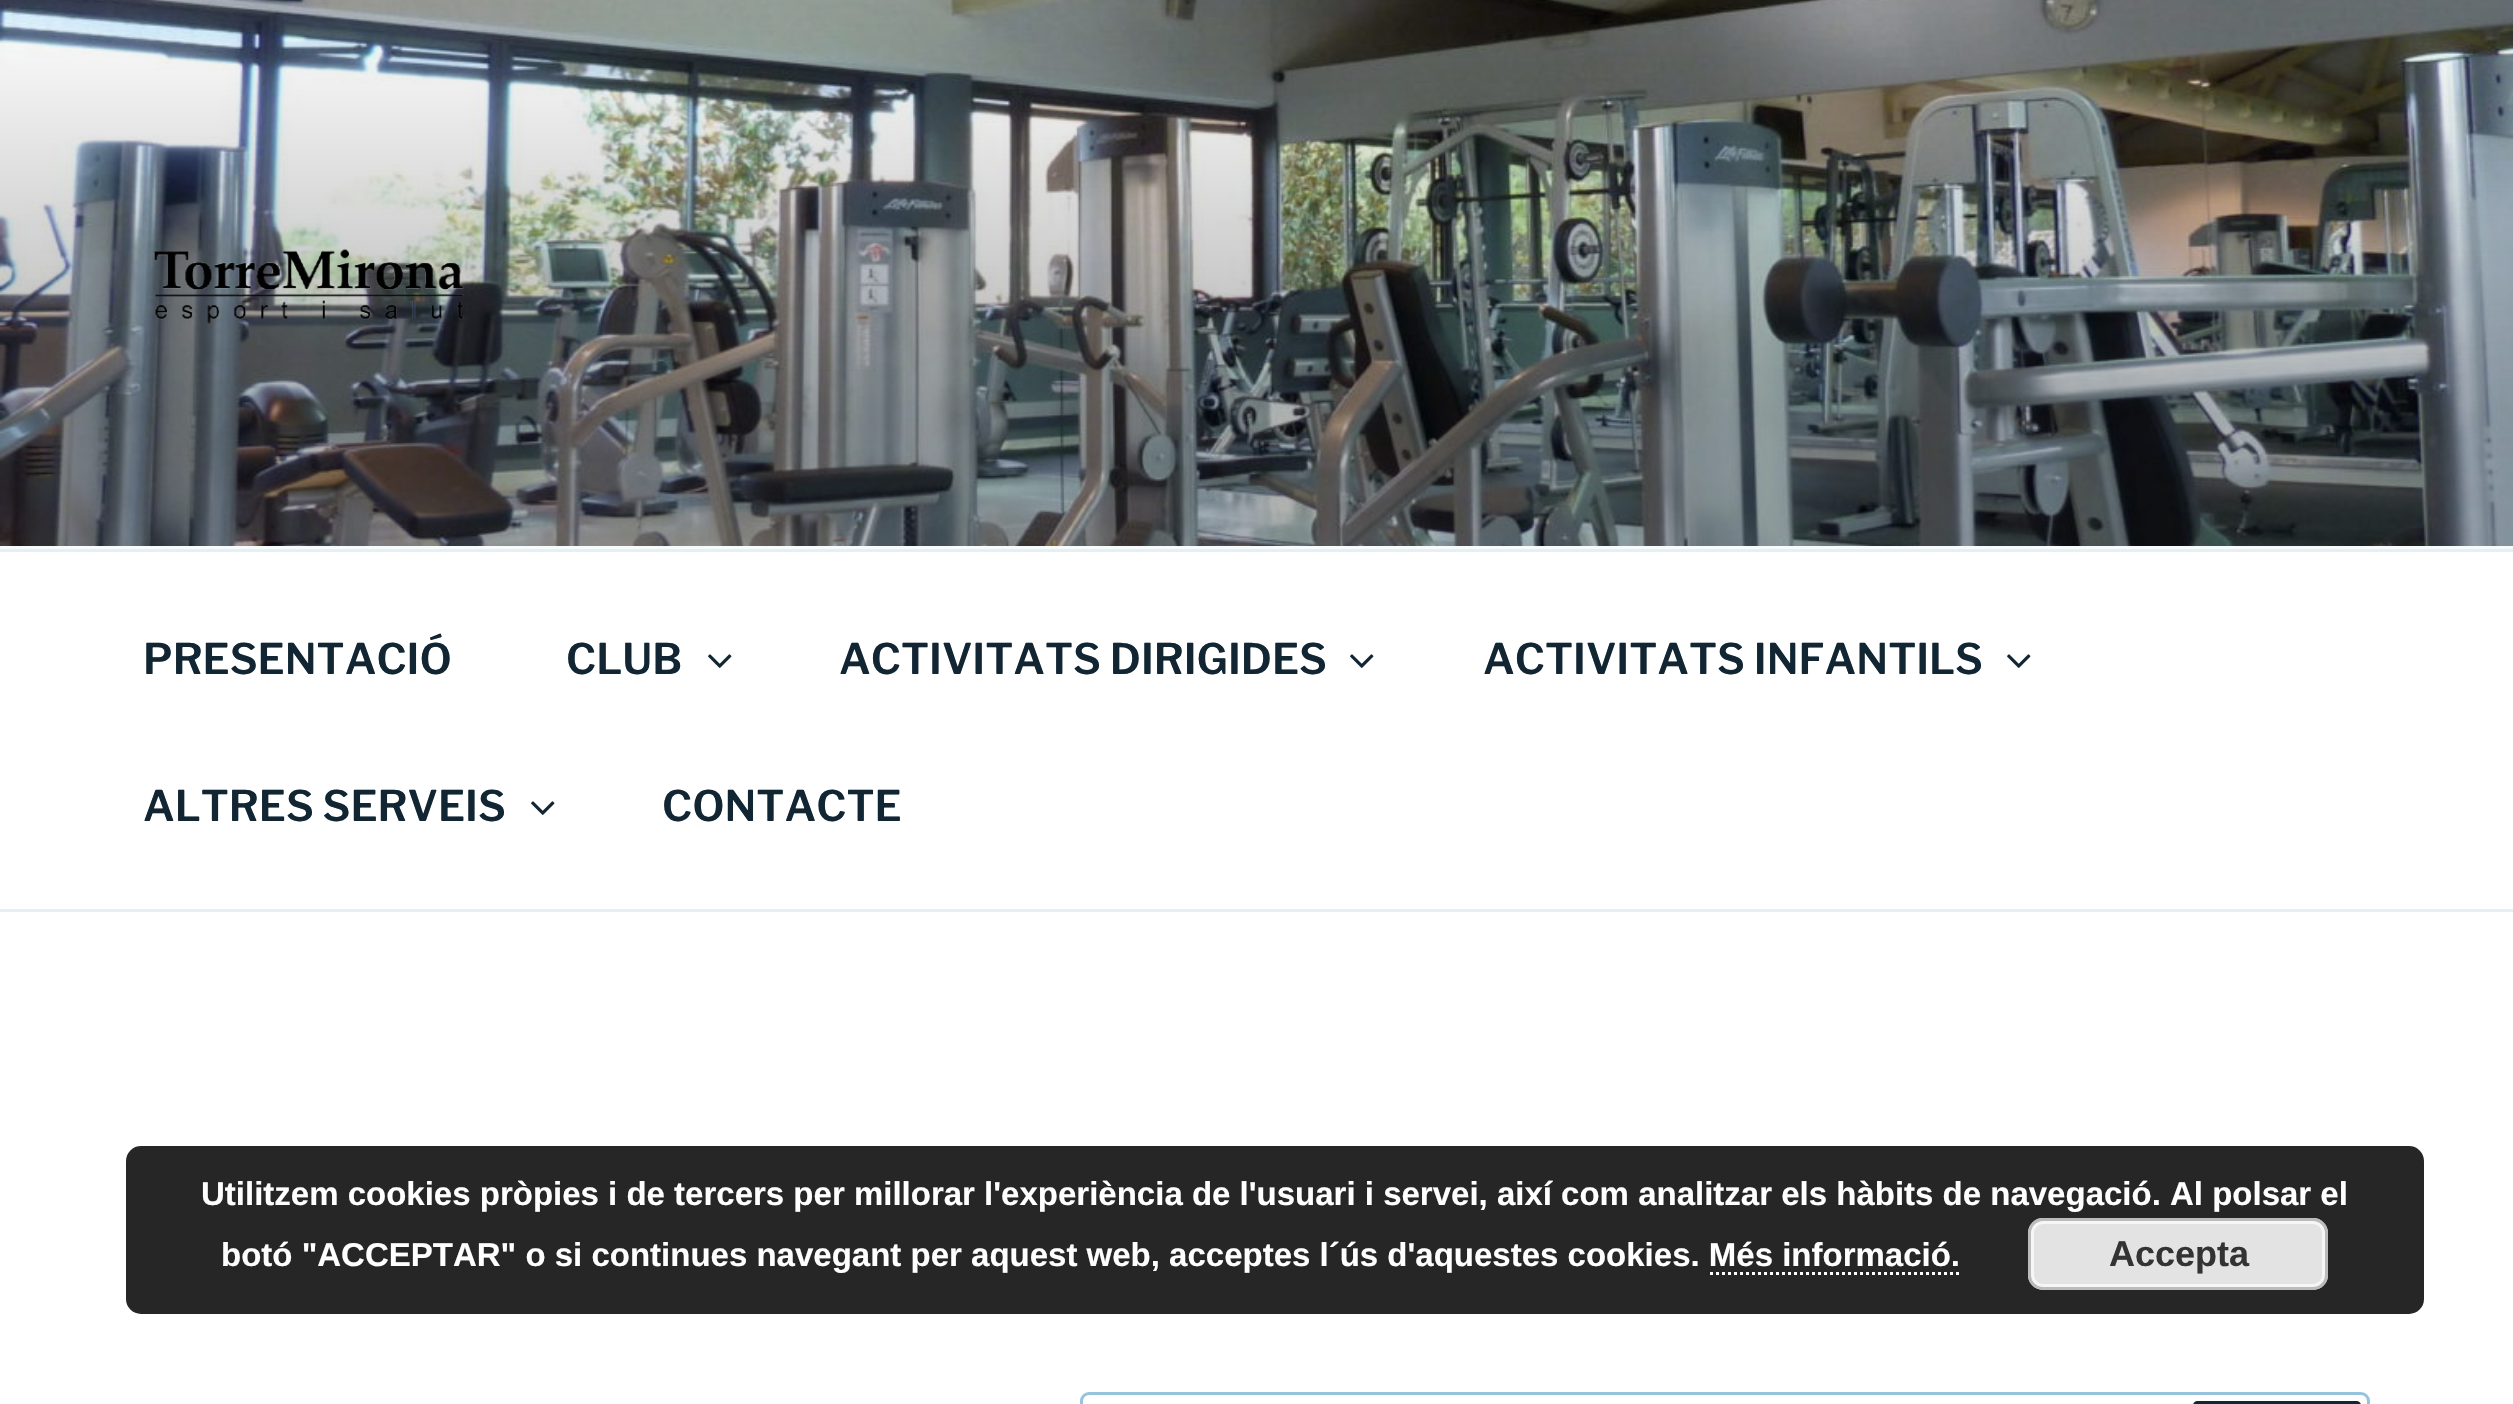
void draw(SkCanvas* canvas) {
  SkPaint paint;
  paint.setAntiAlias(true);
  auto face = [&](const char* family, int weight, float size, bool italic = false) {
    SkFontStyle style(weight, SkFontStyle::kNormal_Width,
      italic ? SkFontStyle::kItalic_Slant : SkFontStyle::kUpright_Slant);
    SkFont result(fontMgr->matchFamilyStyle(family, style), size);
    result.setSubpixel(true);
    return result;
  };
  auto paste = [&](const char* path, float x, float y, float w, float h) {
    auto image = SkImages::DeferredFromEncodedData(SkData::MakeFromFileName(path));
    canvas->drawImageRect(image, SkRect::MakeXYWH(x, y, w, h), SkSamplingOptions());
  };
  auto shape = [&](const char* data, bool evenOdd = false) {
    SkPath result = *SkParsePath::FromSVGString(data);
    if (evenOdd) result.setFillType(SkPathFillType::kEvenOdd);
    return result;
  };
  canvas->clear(0xffffffff);
  paint.setColor(0xfff7fbfc);
  canvas->drawRect(SkRect::MakeXYWH(0, 546, 2513, 3), paint);
  paste("img/1.png", 0, 0, 2513, 546);
  paste("img/2.png", 153, 249, 311, 75);
  paint.setColor(0xffe4f0f6);
  canvas->drawRect(SkRect::MakeXYWH(0, 549, 2513, 3), paint);
  canvas->drawRect(SkRect::MakeXYWH(0, 909, 2513, 3), paint);
  paste("img/3.png", 708, 654, 24, 14);
  paste("img/3.png", 1350, 654, 24, 14);
  paste("img/3.png", 2007, 654, 24, 14);
  paste("img/3.png", 531, 801, 24, 14);
  paint.setStroke(true);
  paint.setStrokeWidth(3);
  paint.setColor(0xff98c3dd);
  canvas->drawRoundRect(SkRect::MakeXYWH(1081.5f, 1393.5f, 1287, 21), 7.5f, 7.5f, paint);
  paint.setStroke(false);
  paint.setColor(0xff112632);
  canvas->drawRoundRect(SkRect::MakeXYWH(2193, 1401, 168, 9), 6, 6, paint);
  paint.setColor(0xd9000000);
  canvas->drawRoundRect(SkRect::MakeXYWH(126, 1146, 2298, 168), 15, 15, paint);
  paint.setColor(0xffe3e3e3);
  canvas->drawRoundRect(SkRect::MakeXYWH(2028, 1218, 300, 72), 15, 15, paint);
  paint.setStroke(true);
  paint.setColor(0xfff6f6f6);
  canvas->drawRoundRect(SkRect::MakeXYWH(2032.5f, 1222.5f, 291, 63), 10.5f, 10.5f, paint);
  paint.setColor(0xffbbbbbb);
  canvas->drawRoundRect(SkRect::MakeXYWH(2029.5f, 1219.5f, 297, 69), 13.5f, 13.5f, paint);
  paint.setColor(0xffffffff);
  paint.setPathEffect(SkDashPathEffect::Make({{3, 3}}, 0));
  canvas->drawPath(shape("M1710 1273.5H1959"), paint);
  paint.setPathEffect(nullptr);
  auto f0 = face("Libre Franklin", 100, 42);
  paint.setStroke(false);
  paint.setColor(0xff112632);
  {
    const struct { const char* s; float x, y; } items[] = {
      {"PRESENTACIÓ", 143, 674},
      {"CLUB", 566, 674},
      {"ACTIVITATS DIRIGIDES", 839, 674},
      {"ACTIVITATS INFANTILS", 1483, 674},
      {"ALTRES SERVEIS", 143, 821},
      {"CONTACTE", 662, 821},
    };
    for (auto [s, x, y] : items) {
      canvas->drawString(s, x, y, f0, paint);
    }
  }
  auto f1 = face("Liberation Sans", 700, 33);
  paint.setColor(0xffffffff);
  canvas->drawString("Utilitzem cookies pròpies i de tercers per millorar l'experiència de l'usuari i servei, així com analitzar els hàbits de navegació. Al polsar el", 201, 1205, f1, paint);
  canvas->drawString("botó \"ACCEPTAR\" o si continues navegant per aquest web, acceptes l´ús d'aquestes cookies. Més informació.", 221, 1266, f1, paint);
  auto f2 = face("Liberation Sans", 700, 36);
  paint.setColor(0xff333333);
  canvas->drawString("Accepta", 2109, 1266, f2, paint);
}
